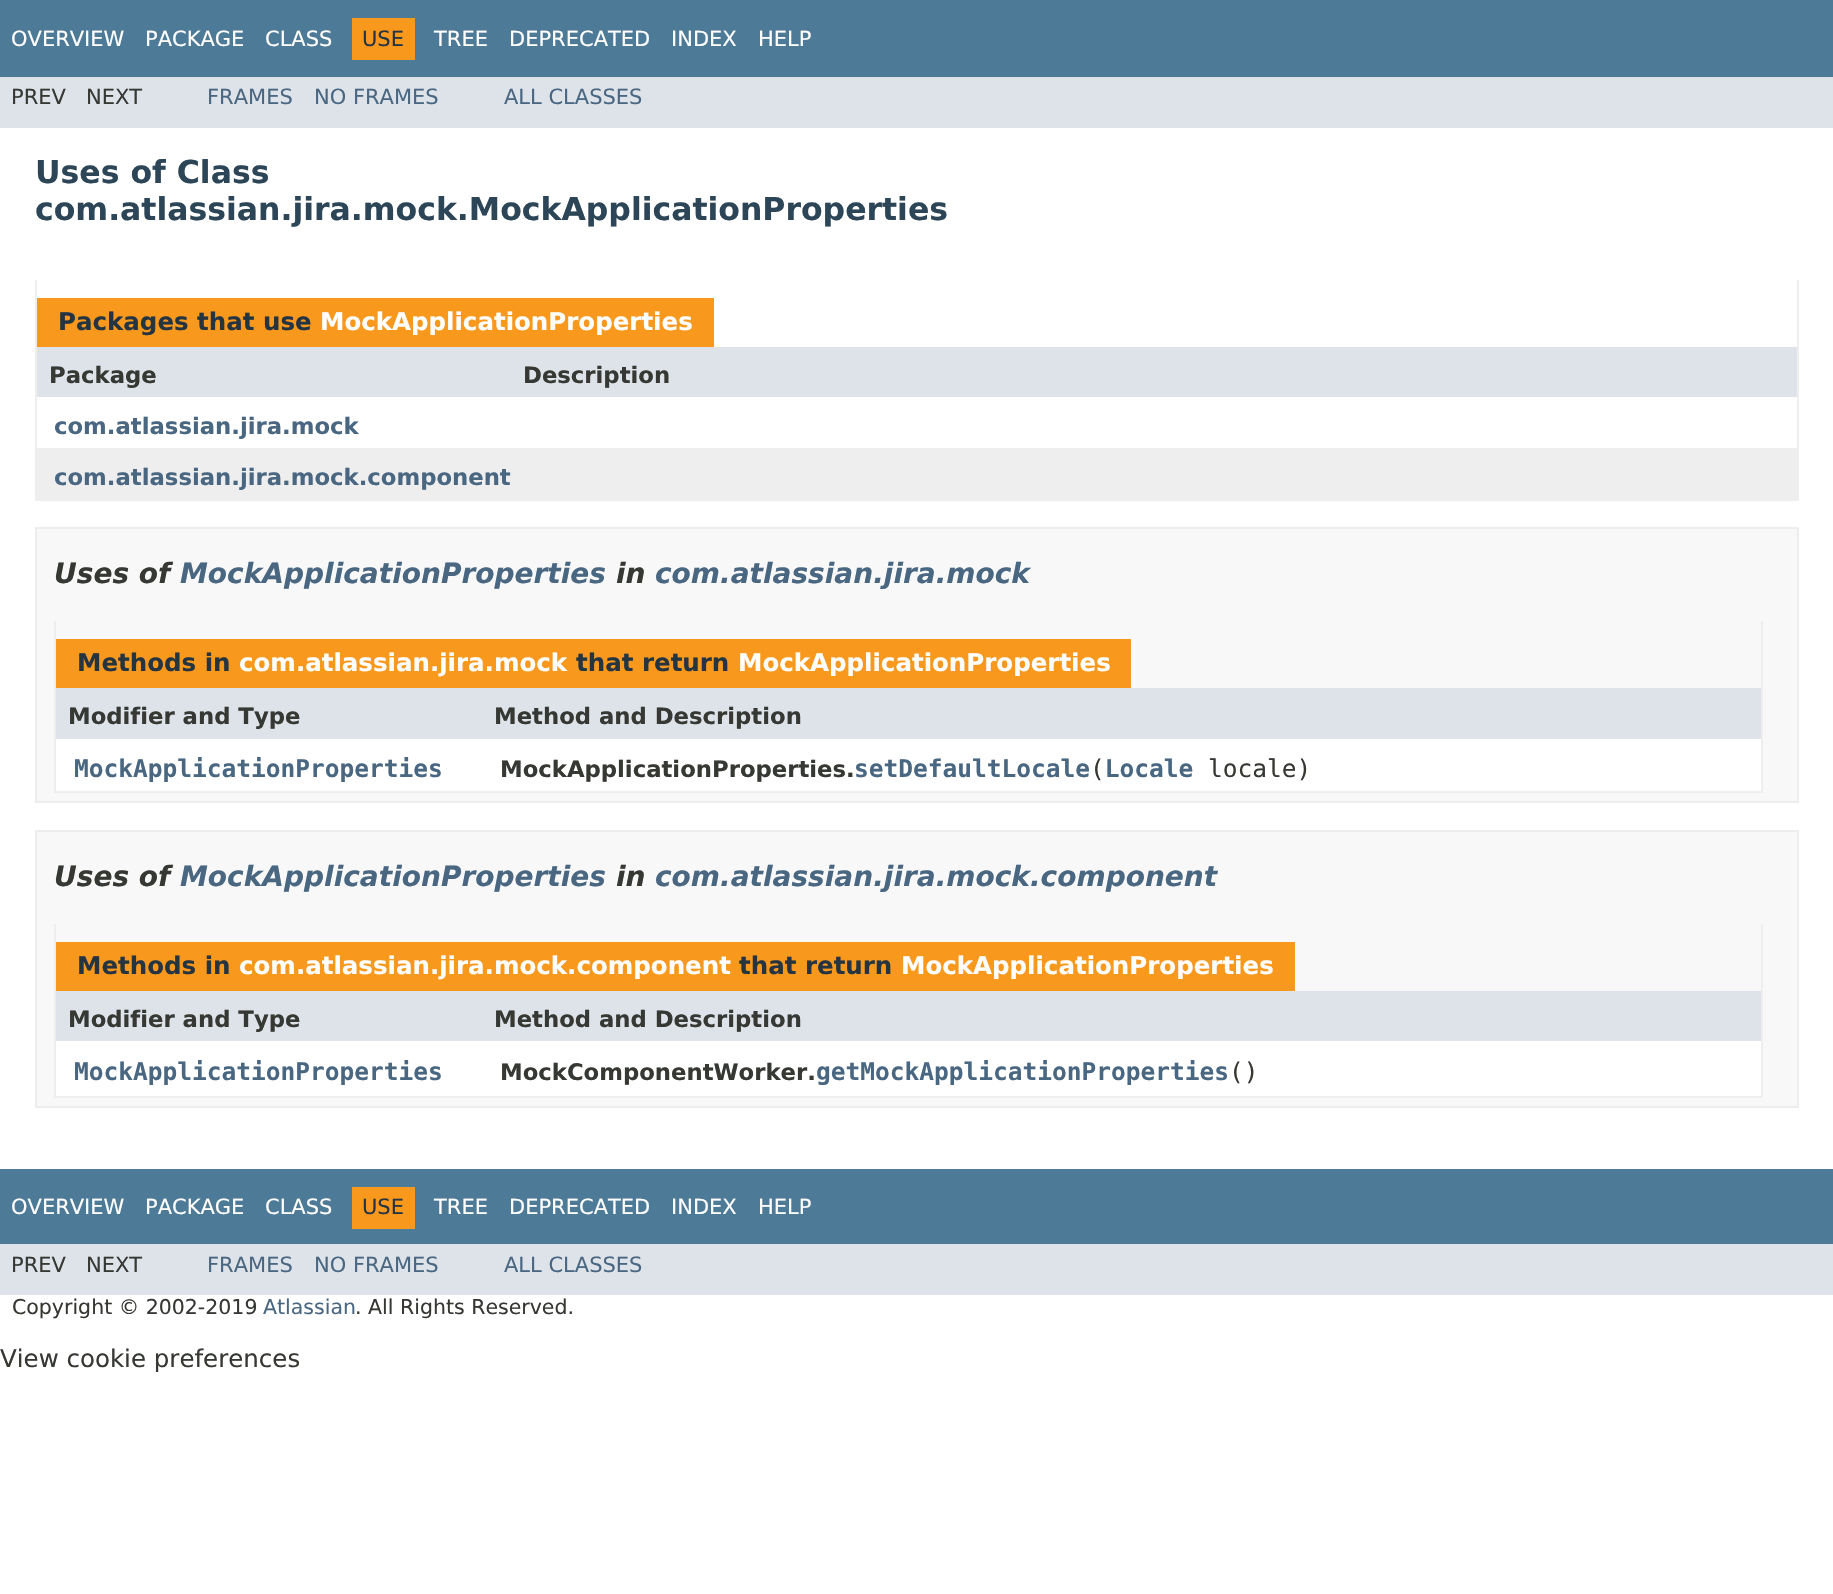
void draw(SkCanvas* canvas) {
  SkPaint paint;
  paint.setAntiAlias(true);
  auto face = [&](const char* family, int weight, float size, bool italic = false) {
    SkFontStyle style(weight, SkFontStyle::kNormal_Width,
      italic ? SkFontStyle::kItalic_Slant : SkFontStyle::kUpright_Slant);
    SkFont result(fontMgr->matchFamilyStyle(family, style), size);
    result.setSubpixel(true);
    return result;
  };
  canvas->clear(0xffffffff);
  {
    const struct { float x, y, w, h; SkColor color; } items[] = {
      {0, 0, 1833, 77, 0xff4d7a97},
      {352, 18, 63, 42, 0xfff8981d},
      {0, 77, 1833, 51, 0xffdee3e9},
      {1797, 280, 2, 221, 0xffeeeeee},
      {35, 499, 1764, 2, 0xffeeeeee},
      {35, 280, 2, 221, 0xffeeeeee},
      {37, 298, 677, 49, 0xfff8981d},
      {37, 347, 1760, 50, 0xffdee3e9},
      {37, 448, 1760, 51, 0xffeeeeef},
    };
    for (auto [x, y, w, h, color] : items) {
      paint.setColor(color);
      canvas->drawRect(SkRect::MakeXYWH(x, y, w, h), paint);
    }
  }
  paint.setColor(0xfff8f8f8);
  canvas->drawRect(SkRect::MakeXYWH(36, 528, 1762, 274), paint);
  paint.setStroke(true);
  paint.setStrokeWidth(2);
  paint.setColor(0xffededed);
  canvas->drawRect(SkRect::MakeXYWH(36, 528, 1762, 274), paint);
  paint.setStroke(false);
  {
    const struct { float x, y, w, h; SkColor color; } items[] = {
      {1761, 621, 2, 172, 0xffeeeeee},
      {54, 791, 1708, 2, 0xffeeeeee},
      {54, 621, 2, 172, 0xffeeeeee},
      {56, 639, 1075, 49, 0xfff8981d},
      {56, 688, 1705, 51, 0xffdee3e9},
      {56, 739, 1705, 52, 0xffffffff},
    };
    for (auto [x, y, w, h, color] : items) {
      paint.setColor(color);
      canvas->drawRect(SkRect::MakeXYWH(x, y, w, h), paint);
    }
  }
  paint.setColor(0xfff8f8f8);
  canvas->drawRect(SkRect::MakeXYWH(36, 831, 1762, 276), paint);
  paint.setStroke(true);
  paint.setColor(0xffededed);
  canvas->drawRect(SkRect::MakeXYWH(36, 831, 1762, 276), paint);
  paint.setStroke(false);
  {
    const struct { float x, y, w, h; SkColor color; } items[] = {
      {1761, 924, 2, 173, 0xffeeeeee},
      {54, 1096, 1708, 2, 0xffeeeeee},
      {54, 924, 2, 173, 0xffeeeeee},
      {56, 942, 1239, 49, 0xfff8981d},
      {56, 991, 1705, 50, 0xffdee3e9},
      {56, 1041, 1705, 55, 0xffffffff},
      {0, 1169, 1833, 75, 0xff4d7a97},
      {352, 1187, 63, 42, 0xfff8981d},
      {0, 1244, 1833, 51, 0xffdee3e9},
    };
    for (auto [x, y, w, h, color] : items) {
      paint.setColor(color);
      canvas->drawRect(SkRect::MakeXYWH(x, y, w, h), paint);
    }
  }
  auto f0 = face("DejaVu Sans", 400, 21);
  paint.setColor(0xffffffff);
  {
    const struct { const char* s; float x, y; } items[] = {
      {"OVERVIEW", 11, 46},
      {"PACKAGE", 145, 46},
      {"CLASS", 265, 46},
    };
    for (auto [s, x, y] : items) {
      canvas->drawString(s, x, y, f0, paint);
    }
  }
  paint.setColor(0xff253441);
  canvas->drawString("USE", 362, 46, f0, paint);
  paint.setColor(0xffffffff);
  {
    const struct { const char* s; float x, y; } items[] = {
      {"TREE", 434, 46},
      {"DEPRECATED", 509, 46},
      {"INDEX", 671, 46},
      {"HELP", 758, 46},
    };
    for (auto [s, x, y] : items) {
      canvas->drawString(s, x, y, f0, paint);
    }
  }
  paint.setColor(0xff353833);
  canvas->drawString("PREV", 11, 104, f0, paint);
  canvas->drawString("NEXT", 86, 104, f0, paint);
  paint.setColor(0xff4a6782);
  {
    const struct { const char* s; float x, y; } items[] = {
      {"FRAMES", 207, 104},
      {"NO FRAMES", 314, 104},
      {"ALL CLASSES", 504, 104},
    };
    for (auto [s, x, y] : items) {
      canvas->drawString(s, x, y, f0, paint);
    }
  }
  auto f1 = face("DejaVu Sans", 700, 31.5f);
  paint.setColor(0xff2c4557);
  canvas->drawString("Uses of Class", 35, 183, f1, paint);
  canvas->drawString("com.atlassian.jira.mock.MockApplicationProperties", 35, 220, f1, paint);
  auto f2 = face("DejaVu Sans", 700, 24.5f);
  paint.setColor(0xff253441);
  canvas->drawString("Packages that use", 58, 330, f2, paint);
  paint.setColor(0xffffffff);
  canvas->drawString("MockApplicationProperties", 320, 330, f2, paint);
  auto f3 = face("DejaVu Sans", 700, 22.75f);
  paint.setColor(0xff353833);
  canvas->drawString("Package", 49, 383, f3, paint);
  canvas->drawString("Description", 523, 383, f3, paint);
  paint.setColor(0xff4a6782);
  canvas->drawString("com.atlassian.jira.mock", 54, 434, f3, paint);
  canvas->drawString("com.atlassian.jira.mock.component", 54, 485, f3, paint);
  auto f4 = face("DejaVu Sans", 700, 28, true);
  paint.setColor(0xff353833);
  canvas->drawString("Uses of", 54, 583, f4, paint);
  paint.setColor(0xff4a6782);
  canvas->drawString("MockApplicationProperties", 180, 583, f4, paint);
  paint.setColor(0xff353833);
  canvas->drawString("in", 616, 583, f4, paint);
  paint.setColor(0xff4a6782);
  canvas->drawString("com.atlassian.jira.mock", 655, 583, f4, paint);
  paint.setColor(0xff253441);
  canvas->drawString("Methods in", 77, 671, f2, paint);
  paint.setColor(0xffffffff);
  canvas->drawString("com.atlassian.jira.mock", 239, 671, f2, paint);
  paint.setColor(0xff253441);
  canvas->drawString("that return", 576, 671, f2, paint);
  paint.setColor(0xffffffff);
  canvas->drawString("MockApplicationProperties", 738, 671, f2, paint);
  paint.setColor(0xff353833);
  canvas->drawString("Modifier and Type", 68, 724, f3, paint);
  canvas->drawString("Method and Description", 494, 724, f3, paint);
  auto f5 = face("DejaVu Sans Mono", 700, 24.5f);
  paint.setColor(0xff4a6782);
  canvas->drawString("MockApplicationProperties", 74, 777, f5, paint);
  canvas->drawString("setDefaultLocale Locale", 854, 777, f5, paint);
  paint.setColor(0xff353833);
  canvas->drawString("MockApplicationProperties.", 500, 777, f3, paint);
  auto f6 = face("DejaVu Sans Mono", 400, 24.5f);
  canvas->drawString("(", 1090, 777, f6, paint);
  canvas->drawString("locale)", 1208, 777, f6, paint);
  canvas->drawString("Uses of", 54, 886, f4, paint);
  paint.setColor(0xff4a6782);
  canvas->drawString("MockApplicationProperties", 180, 886, f4, paint);
  paint.setColor(0xff353833);
  canvas->drawString("in", 616, 886, f4, paint);
  paint.setColor(0xff4a6782);
  canvas->drawString("com.atlassian.jira.mock.component", 655, 886, f4, paint);
  paint.setColor(0xff253441);
  canvas->drawString("Methods in", 77, 974, f2, paint);
  paint.setColor(0xffffffff);
  canvas->drawString("com.atlassian.jira.mock.component", 239, 974, f2, paint);
  paint.setColor(0xff253441);
  canvas->drawString("that return", 739, 974, f2, paint);
  paint.setColor(0xffffffff);
  canvas->drawString("MockApplicationProperties", 901, 974, f2, paint);
  paint.setColor(0xff353833);
  canvas->drawString("Modifier and Type", 68, 1027, f3, paint);
  canvas->drawString("Method and Description", 494, 1027, f3, paint);
  paint.setColor(0xff4a6782);
  canvas->drawString("MockApplicationProperties", 74, 1080, f5, paint);
  paint.setColor(0xff353833);
  canvas->drawString("MockComponentWorker.", 500, 1080, f3, paint);
  paint.setColor(0xff4a6782);
  canvas->drawString("getMockApplicationProperties", 816, 1080, f5, paint);
  paint.setColor(0xff353833);
  canvas->drawString("()", 1229, 1080, f6, paint);
  paint.setColor(0xffffffff);
  {
    const struct { const char* s; float x, y; } items[] = {
      {"OVERVIEW", 11, 1214},
      {"PACKAGE", 145, 1214},
      {"CLASS", 265, 1214},
    };
    for (auto [s, x, y] : items) {
      canvas->drawString(s, x, y, f0, paint);
    }
  }
  paint.setColor(0xff253441);
  canvas->drawString("USE", 362, 1214, f0, paint);
  paint.setColor(0xffffffff);
  {
    const struct { const char* s; float x, y; } items[] = {
      {"TREE", 434, 1214},
      {"DEPRECATED", 509, 1214},
      {"INDEX", 671, 1214},
      {"HELP", 758, 1214},
    };
    for (auto [s, x, y] : items) {
      canvas->drawString(s, x, y, f0, paint);
    }
  }
  paint.setColor(0xff353833);
  canvas->drawString("PREV", 11, 1272, f0, paint);
  canvas->drawString("NEXT", 86, 1272, f0, paint);
  paint.setColor(0xff4a6782);
  {
    const struct { const char* s; float x, y; } items[] = {
      {"FRAMES", 207, 1272},
      {"NO FRAMES", 314, 1272},
      {"ALL CLASSES", 504, 1272},
    };
    for (auto [s, x, y] : items) {
      canvas->drawString(s, x, y, f0, paint);
    }
  }
  auto f7 = face("DejaVu Sans", 400, 20.5f);
  paint.setColor(0xff353833);
  canvas->drawString("Copyright © 2002-2019", 12, 1314, f7, paint);
  paint.setColor(0xff4a6782);
  canvas->drawString("Atlassian", 263, 1314, f7, paint);
  paint.setColor(0xff353833);
  canvas->drawString(". All Rights Reserved.", 355, 1314, f7, paint);
  auto f8 = face("DejaVu Sans", 400, 24.5f);
  canvas->drawString("View cookie preferences", 0, 1367, f8, paint);
}
